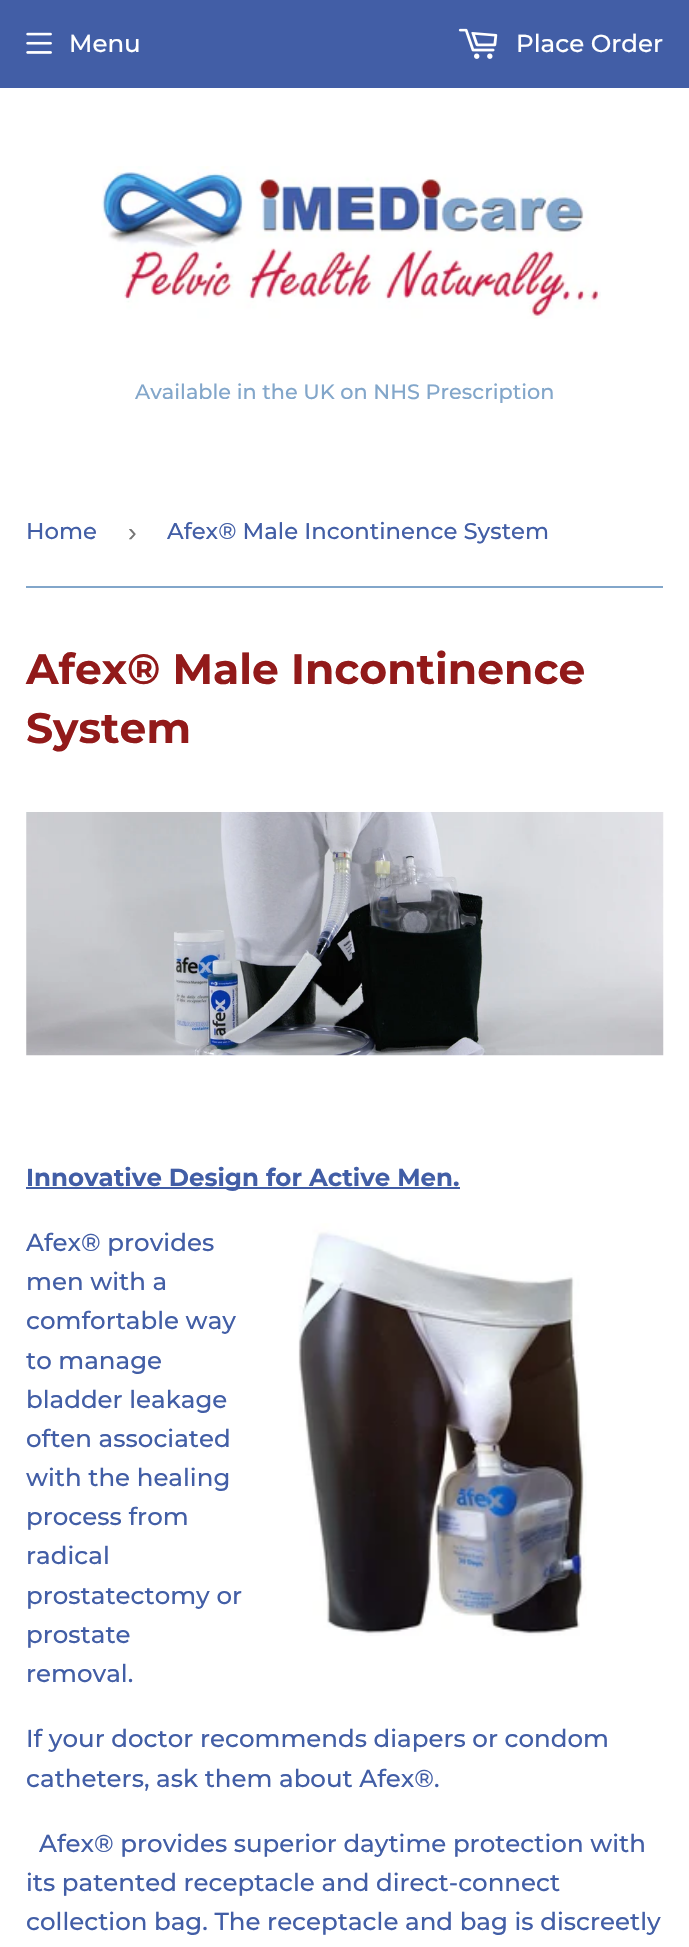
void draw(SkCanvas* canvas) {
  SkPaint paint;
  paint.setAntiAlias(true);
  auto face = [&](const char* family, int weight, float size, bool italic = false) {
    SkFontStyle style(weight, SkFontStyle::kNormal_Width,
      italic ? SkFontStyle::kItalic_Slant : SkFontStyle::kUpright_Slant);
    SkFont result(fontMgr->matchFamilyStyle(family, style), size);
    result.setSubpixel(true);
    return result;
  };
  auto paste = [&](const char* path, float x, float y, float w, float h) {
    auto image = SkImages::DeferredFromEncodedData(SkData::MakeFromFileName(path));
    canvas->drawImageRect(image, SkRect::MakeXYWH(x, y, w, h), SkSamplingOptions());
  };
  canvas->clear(0xffffffff);
  paint.setColor(0xff425ea6);
  canvas->drawRect(SkRect::MakeXYWH(0, 0, 689, 88), paint);
  paste("img/1.png", 26, 32, 26, 22);
  paste("img/2.png", 458, 28, 40, 31);
  paste("img/3.png", 101, 166, 500, 153);
  paint.setColor(0xff82a6ca);
  canvas->drawRect(SkRect::MakeXYWH(26, 586, 637, 2), paint);
  paste("img/4.png", 26, 812, 638, 244);
  paint.setColor(0xff425ea6);
  canvas->drawRect(SkRect::MakeXYWH(26, 1187, 434, 2), paint);
  paste("img/5.png", 298, 1223, 289, 413);
  auto f0 = face("Montserrat", 500, 24.5f);
  paint.setColor(0xffffffff);
  canvas->drawString("Menu", 69, 52, f0, paint);
  canvas->drawString("Place Order", 516, 52, f0, paint);
  auto f1 = face("Montserrat", 500, 20.8f);
  paint.setColor(0xff82a6ca);
  canvas->drawString("Available in the UK on NHS Prescription", 135, 399, f1, paint);
  auto f2 = face("Montserrat", 500, 22.75f);
  paint.setColor(0xff425ea6);
  canvas->drawString("Home", 26, 539, f2, paint);
  auto f3 = face("Liberation Sans", 400, 26);
  paint.setColor(0xff767676);
  canvas->drawString("›", 128, 541, f3, paint);
  paint.setColor(0xff425ea6);
  canvas->drawString("Afex® Male Incontinence System", 167, 539, f2, paint);
  auto f4 = face("Montserrat", 700, 42.5f);
  paint.setColor(0xff921a1a);
  canvas->drawString("Afex® Male Incontinence", 26, 684, f4, paint);
  canvas->drawString("System", 26, 743, f4, paint);
  auto f5 = face("Montserrat", 700, 24.5f);
  paint.setColor(0xff425ea6);
  canvas->drawString("Innovative Design for Active Men.", 26, 1186, f5, paint);
  {
    const struct { const char* s; float x, y; } items[] = {
      {"Afex® provides", 26, 1251},
      {"men with a", 26, 1290},
      {"comfortable way", 26, 1329},
      {"to manage", 26, 1369},
      {"bladder leakage", 26, 1408},
      {"often associated", 26, 1447},
      {"with the healing", 26, 1486},
      {"process from", 26, 1525},
      {"radical", 26, 1564},
      {"prostatectomy or", 26, 1604},
      {"prostate", 26, 1643},
      {"removal.", 26, 1682},
      {"If your doctor recommends diapers or condom", 26, 1747},
      {"catheters, ask them about Afex®.", 26, 1787},
      {"Afex® provides superior daytime protection with", 39, 1852},
      {"its patented receptacle and direct-connect", 26, 1891},
      {"collection bag. The receptacle and bag is discreetly", 26, 1930},
    };
    for (auto [s, x, y] : items) {
      canvas->drawString(s, x, y, f0, paint);
    }
  }
}
